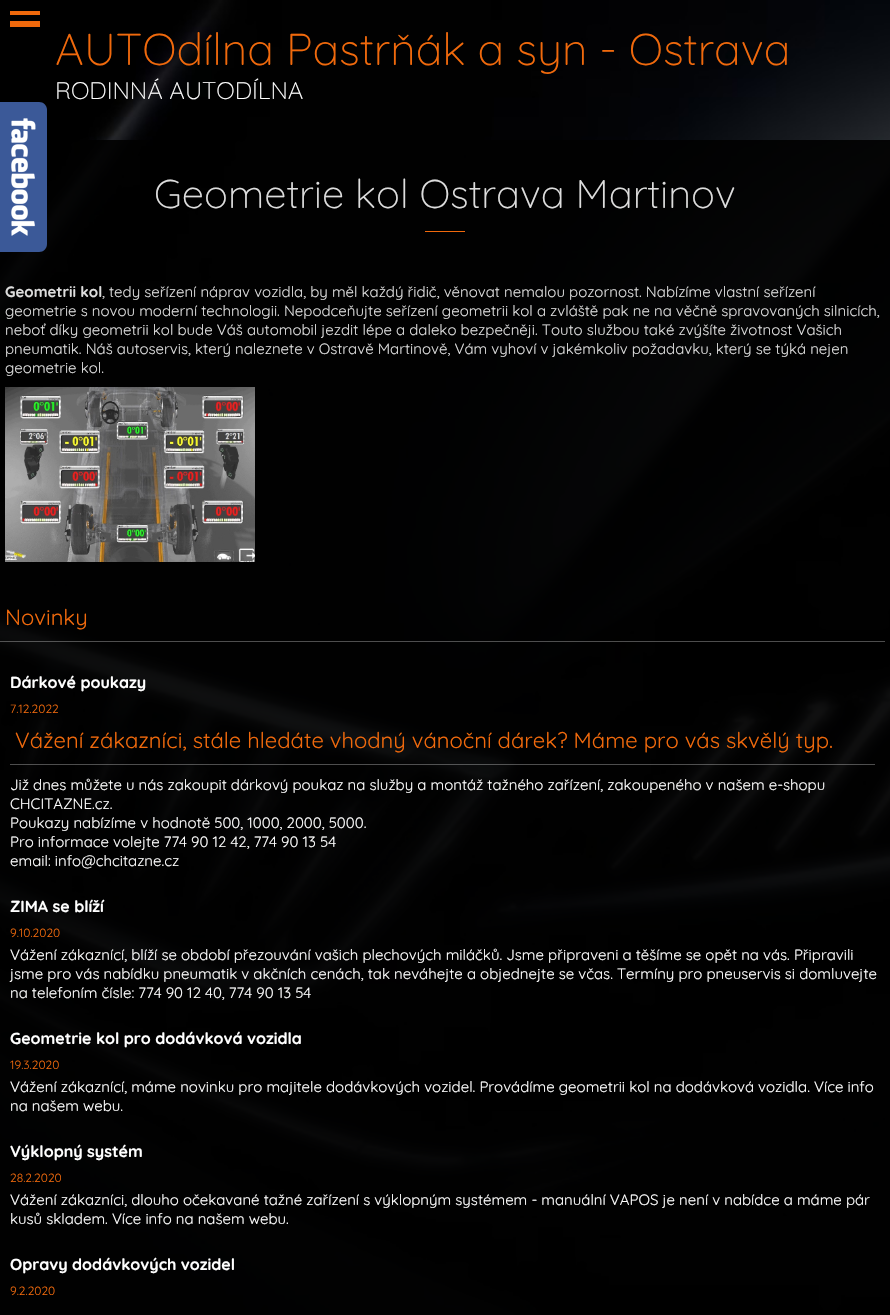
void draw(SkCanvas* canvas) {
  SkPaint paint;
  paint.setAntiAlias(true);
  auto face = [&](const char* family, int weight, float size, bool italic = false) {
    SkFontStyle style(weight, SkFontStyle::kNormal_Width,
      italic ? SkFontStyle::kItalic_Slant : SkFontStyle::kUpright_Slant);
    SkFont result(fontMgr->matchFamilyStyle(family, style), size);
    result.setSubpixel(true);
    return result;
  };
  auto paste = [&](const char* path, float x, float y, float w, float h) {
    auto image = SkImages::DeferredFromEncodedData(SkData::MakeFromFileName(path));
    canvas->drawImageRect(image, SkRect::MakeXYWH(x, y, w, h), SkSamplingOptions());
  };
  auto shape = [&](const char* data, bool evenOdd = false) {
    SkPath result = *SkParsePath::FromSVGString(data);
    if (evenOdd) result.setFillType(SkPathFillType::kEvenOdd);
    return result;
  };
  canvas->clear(0xffffffff);
  paste("img/1.png", 0, 0, 890, 1315);
  {
    const struct { float x, y, w, h; SkColor color; } items[] = {
      {10, 21, 30, 6, 0xfff0690c},
      {10, 11, 30, 4, 0xfff0690c},
      {0, 140, 890, 1175, 0xe6000000},
    };
    for (auto [x, y, w, h, color] : items) {
      paint.setColor(color);
      canvas->drawRect(SkRect::MakeXYWH(x, y, w, h), paint);
    }
  }
  paint.setColor(0xff3b5998);
  canvas->drawPath(shape("M0 102H39C43.5 102 47 105.5 47 110V244C47 248.5 43.5 252 39 252H0Z"), paint);
  paste("img/2.png", 11, 118, 25, 118);
  paint.setColor(0xfff0690c);
  canvas->drawRect(SkRect::MakeXYWH(425, 231, 40, 1), paint);
  paste("img/3.png", 5, 387, 250, 175);
  paint.setColor(0x4dffffff);
  canvas->drawRect(SkRect::MakeXYWH(0, 641, 885, 1), paint);
  canvas->drawRect(SkRect::MakeXYWH(10, 764, 865, 1), paint);
  auto f0 = face("Quicksand", 300, 44.5f);
  paint.setColor(0xfff0690c);
  canvas->drawString("AUTOdílna Pastrňák a syn - Ostrava", 55, 65, f0, paint);
  auto f1 = face("Quicksand", 300, 24);
  paint.setColor(0xffffffff);
  canvas->drawString("RODINNÁ AUTODÍLNA", 55, 99, f1, paint);
  auto f2 = face("Quicksand", 300, 40);
  paint.setColor(0xffdddddd);
  canvas->drawString("Geometrie kol Ostrava Martinov", 154, 208, f2, paint);
  auto f3 = face("Quicksand", 700, 15);
  canvas->drawString("Geometrii kol", 5, 297, f3, paint);
  auto f4 = face("Quicksand", 400, 15);
  {
    const struct { const char* s; float x, y; } items[] = {
      {", tedy seřízení náprav vozidla, by měl každý řidič, věnovat nemalou pozornost. Nabízíme vlastní seřízení", 102, 297},
      {"geometrie s novou moderní technologii. Nepodceňujte seřízení geometrii kol a zvláště pak ne na věčně spravovaných silnicích,", 5, 316},
      {"neboť díky geometrii kol bude Váš automobil jezdit lépe a daleko bezpečněji. Touto službou také zvýšíte životnost Vašich", 5, 335},
      {"pneumatik. Náš autoservis, který naleznete v Ostravě Martinově, Vám vyhoví v jakémkoliv požadavku, který se týká nejen", 5, 354},
      {"geometrie kol.", 5, 373},
    };
    for (auto [s, x, y] : items) {
      canvas->drawString(s, x, y, f4, paint);
    }
  }
  auto f5 = face("Quicksand", 400, 22);
  paint.setColor(0xfff0690c);
  canvas->drawString("Novinky", 5, 625, f5, paint);
  auto f6 = face("Quicksand", 700, 16);
  paint.setColor(0xffffffff);
  canvas->drawString("Dárkové poukazy", 10, 688, f6, paint);
  auto f7 = face("Quicksand", 400, 12);
  paint.setColor(0xfff0690c);
  canvas->drawString("7.12.2022", 10, 713, f7, paint);
  canvas->drawString("Vážení zákazníci, stále hledáte vhodný vánoční dárek? Máme pro vás skvělý typ.", 15, 748, f5, paint);
  paint.setColor(0xffffffff);
  {
    const struct { const char* s; float x, y; } items[] = {
      {"Již dnes můžete u nás zakoupit dárkový poukaz na služby a montáž tažného zařízení, zakoupeného v našem e-shopu", 10, 790},
      {"CHCITAZNE.cz.", 10, 809},
      {"Poukazy nabízíme v hodnotě 500, 1000, 2000, 5000.", 10, 828},
      {"Pro informace volejte 774 90 12 42, 774 90 13 54", 10, 847},
      {"email: info@chcitazne.cz", 10, 866},
    };
    for (auto [s, x, y] : items) {
      canvas->drawString(s, x, y, f4, paint);
    }
  }
  canvas->drawString("ZIMA se blíží", 10, 912, f6, paint);
  paint.setColor(0xfff0690c);
  canvas->drawString("9.10.2020", 10, 937, f7, paint);
  paint.setColor(0xffffffff);
  {
    const struct { const char* s; float x, y; } items[] = {
      {"Vážení zákaznící, blíží se období přezouvání vašich plechových miláčků. Jsme připraveni a těšíme se opět na vás. Připravili", 10, 960},
      {"jsme pro vás nabídku pneumatik v akčních cenách, tak neváhejte a objednejte se včas. Termíny pro pneuservis si domluvejte", 10, 979},
      {"na telefoním čísle: 774 90 12 40, 774 90 13 54", 10, 998},
    };
    for (auto [s, x, y] : items) {
      canvas->drawString(s, x, y, f4, paint);
    }
  }
  canvas->drawString("Geometrie kol pro dodávková vozidla", 10, 1044, f6, paint);
  paint.setColor(0xfff0690c);
  canvas->drawString("19.3.2020", 10, 1069, f7, paint);
  paint.setColor(0xffffffff);
  canvas->drawString("Vážení zákaznící, máme novinku pro majitele dodávkových vozidel. Provádíme geometrii kol na dodávková vozidla. Více info", 10, 1092, f4, paint);
  canvas->drawString("na našem webu.", 10, 1111, f4, paint);
  canvas->drawString("Výklopný systém", 10, 1157, f6, paint);
  paint.setColor(0xfff0690c);
  canvas->drawString("28.2.2020", 10, 1182, f7, paint);
  paint.setColor(0xffffffff);
  canvas->drawString("Vážení zákazníci, dlouho očekavané tažné zařízení s výklopným systémem - manuální VAPOS je není v nabídce a máme pár", 10, 1205, f4, paint);
  canvas->drawString("kusů skladem. Více info na našem webu.", 10, 1224, f4, paint);
  canvas->drawString("Opravy dodávkových vozidel", 10, 1270, f6, paint);
  paint.setColor(0xfff0690c);
  canvas->drawString("9.2.2020", 10, 1295, f7, paint);
}
